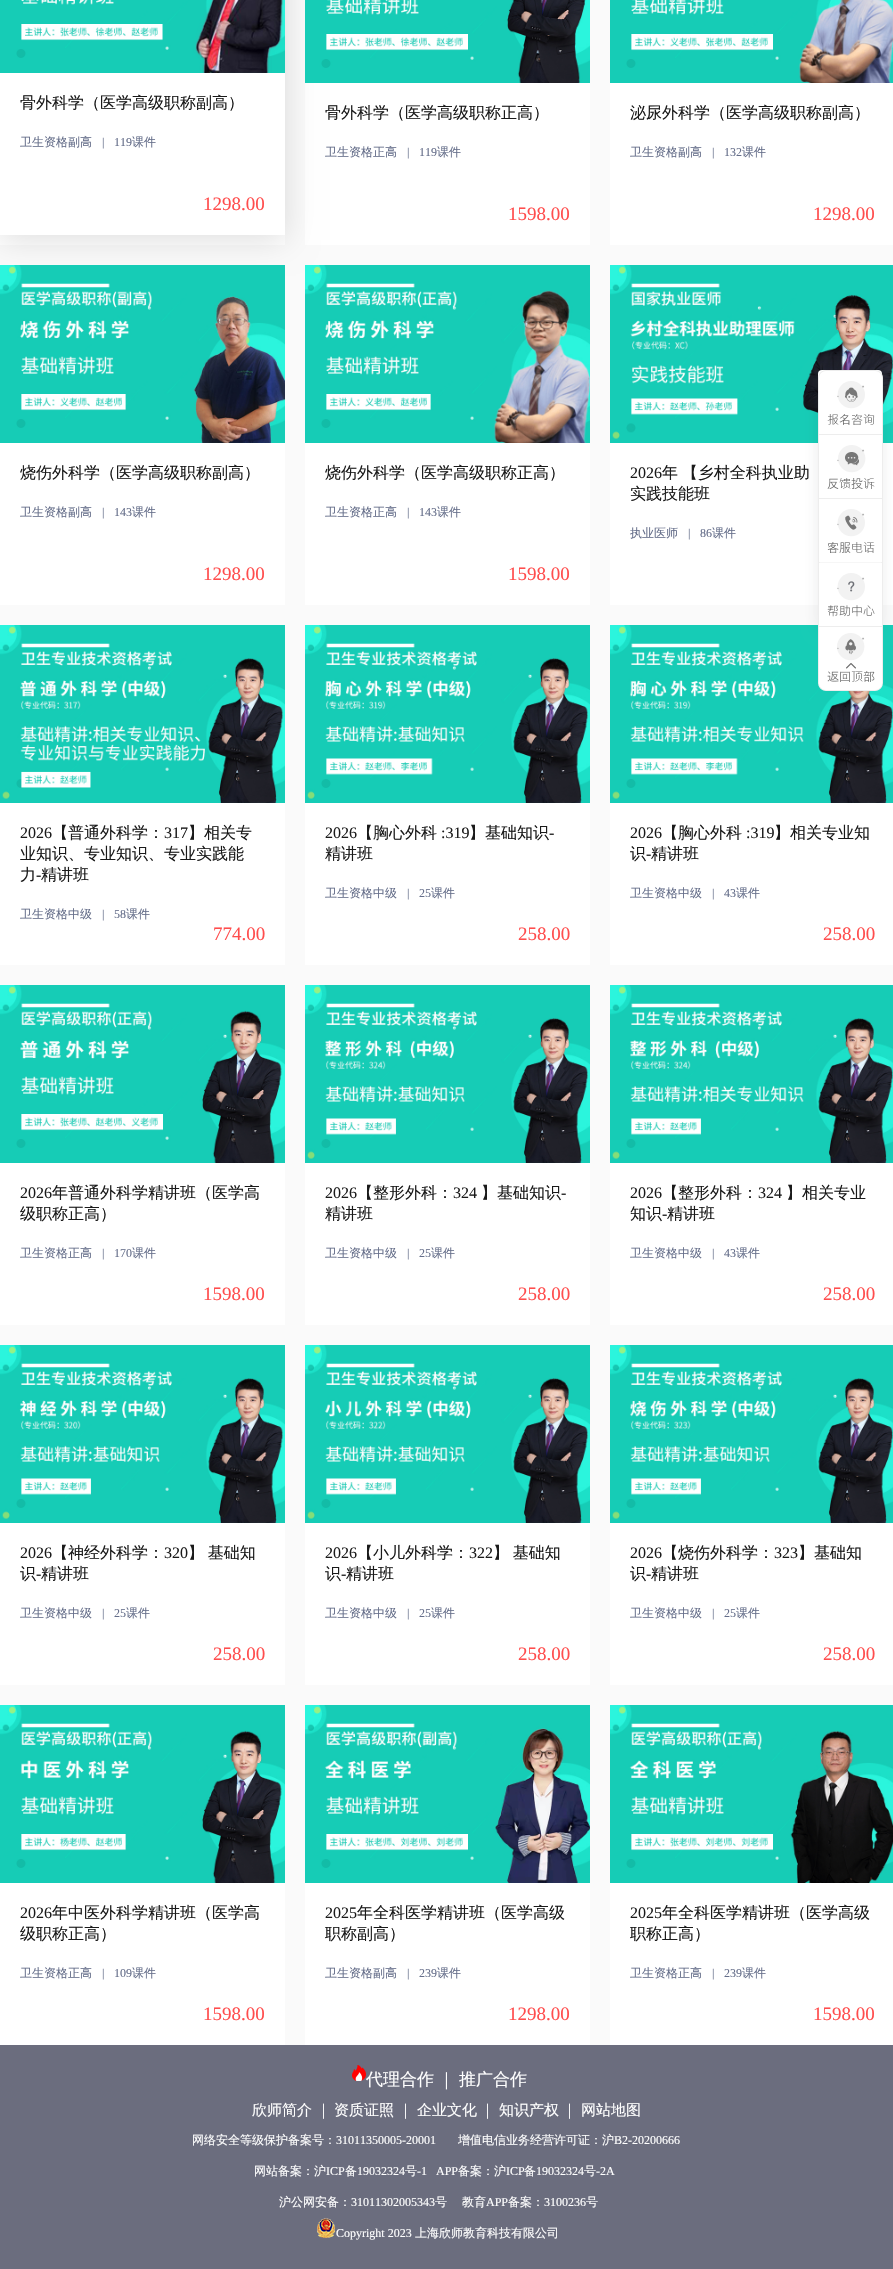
void draw(SkCanvas* canvas) {
  SkPaint paint;
  paint.setAntiAlias(true);
  auto face = [&](const char* family, int weight, float size, bool italic = false) {
    SkFontStyle style(weight, SkFontStyle::kNormal_Width,
      italic ? SkFontStyle::kItalic_Slant : SkFontStyle::kUpright_Slant);
    SkFont result(fontMgr->matchFamilyStyle(family, style), size);
    result.setSubpixel(true);
    return result;
  };
  auto writeSpaced = [&](const char* s, float x, float y, const SkFont& font, const SkPaint& ink, float letter, float word) {
    std::vector<SkGlyphID> glyphs(font.countText(s, strlen(s), SkTextEncoding::kUTF8));
    std::vector<float> xs(glyphs.size());
    font.textToGlyphs(s, strlen(s), SkTextEncoding::kUTF8, glyphs);
    font.getXPos(glyphs, xs, x);
    float extra = 0;
    for (size_t i = 0; i < glyphs.size(); i++) {
      xs[i] += extra;
      extra += letter + word * (glyphs[i] == font.unicharToGlyph(' '));
    }
    canvas->drawTextBlob(SkTextBlob::MakeFromPosHGlyphs(glyphs, xs, y, font), 0, 0, ink);
  };
  auto paste = [&](const char* path, float x, float y, float w, float h) {
    auto image = SkImages::DeferredFromEncodedData(SkData::MakeFromFileName(path));
    canvas->drawImageRect(image, SkRect::MakeXYWH(x, y, w, h), SkSamplingOptions());
  };
  auto shape = [&](const char* data, bool evenOdd = false) {
    SkPath result = *SkParsePath::FromSVGString(data);
    if (evenOdd) result.setFillType(SkPathFillType::kEvenOdd);
    return result;
  };
  canvas->clear(0xff6b6d7e);
  {
    const struct { float x, y, w, h; SkColor color; } items[] = {
      {0, 0, 893, 2045, 0xfffafafa},
      {0, 73, 285, 172, 0xffffffff},
      {305, 83, 285, 162, 0xffffffff},
    };
    for (auto [x, y, w, h, color] : items) {
      paint.setColor(color);
      canvas->drawRect(SkRect::MakeXYWH(x, y, w, h), paint);
    }
  }
  canvas->save();
  canvas->clipPath(shape("M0 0H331V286H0ZM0-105H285V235H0Z", true), true);
  paint.setColor(0x21000000);
  paint.setMaskFilter(SkMaskFilter::MakeBlur(kNormal_SkBlurStyle, 15));
  canvas->drawRect(SkRect::MakeXYWH(0, -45, 285, 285), paint);
  paint.setMaskFilter(nullptr);
  canvas->restore();
  paste("img/1.png", 0, 0, 285, 73);
  paste("img/2.png", 305, 0, 285, 83);
  paint.setColor(0xffffffff);
  canvas->drawRect(SkRect::MakeXYWH(610, 83, 283, 162), paint);
  paste("img/3.png", 610, 0, 283, 83);
  canvas->drawRect(SkRect::MakeXYWH(0, 443, 285, 162), paint);
  paste("img/4.png", 0, 265, 285, 178);
  canvas->drawRect(SkRect::MakeXYWH(305, 443, 285, 162), paint);
  paste("img/5.png", 305, 265, 285, 178);
  canvas->drawRect(SkRect::MakeXYWH(610, 443, 283, 162), paint);
  paste("img/6.png", 610, 265, 283, 178);
  canvas->drawRect(SkRect::MakeXYWH(0, 803, 285, 162), paint);
  paste("img/7.png", 0, 625, 285, 178);
  canvas->drawRect(SkRect::MakeXYWH(305, 803, 285, 162), paint);
  paste("img/8.png", 305, 625, 285, 178);
  canvas->drawRect(SkRect::MakeXYWH(610, 803, 283, 162), paint);
  paste("img/9.png", 610, 625, 283, 178);
  canvas->drawRect(SkRect::MakeXYWH(0, 1163, 285, 162), paint);
  paste("img/10.png", 0, 985, 285, 178);
  canvas->drawRect(SkRect::MakeXYWH(305, 1163, 285, 162), paint);
  paste("img/11.png", 305, 985, 285, 178);
  canvas->drawRect(SkRect::MakeXYWH(610, 1163, 283, 162), paint);
  paste("img/12.png", 610, 985, 283, 178);
  canvas->drawRect(SkRect::MakeXYWH(0, 1523, 285, 162), paint);
  paste("img/13.png", 0, 1345, 285, 178);
  canvas->drawRect(SkRect::MakeXYWH(305, 1523, 285, 162), paint);
  paste("img/14.png", 305, 1345, 285, 178);
  canvas->drawRect(SkRect::MakeXYWH(610, 1523, 283, 162), paint);
  paste("img/15.png", 610, 1345, 283, 178);
  canvas->drawRect(SkRect::MakeXYWH(0, 1883, 285, 162), paint);
  paste("img/16.png", 0, 1705, 285, 178);
  canvas->drawRect(SkRect::MakeXYWH(305, 1883, 285, 162), paint);
  paste("img/17.png", 305, 1705, 285, 178);
  canvas->drawRect(SkRect::MakeXYWH(610, 1883, 283, 162), paint);
  paste("img/18.png", 610, 1705, 283, 178);
  paint.setColor(0x1a343c45);
  paint.setMaskFilter(SkMaskFilter::MakeBlur(kNormal_SkBlurStyle, 7.5f));
  canvas->drawRoundRect(SkRect::MakeXYWH(818, 374, 64, 256), 4, 4, paint);
  paint.setMaskFilter(nullptr);
  paint.setColor(0xffffffff);
  canvas->drawRoundRect(SkRect::MakeXYWH(818, 370, 64, 256), 4, 4, paint);
  paste("img/19.png", 818, 370, 65, 64);
  paste("img/20.png", 818, 434, 65, 64);
  paste("img/21.png", 818, 498, 65, 64);
  paste("img/22.png", 818, 562, 65, 64);
  paste("img/23.png", 818, 626, 65, 65);
  paste("img/25.png", 317, 2218, 18, 20);
  auto f0 = face("WenQuanYi Zen Hei", 500, 16);
  paint.setColor(0xff1a1a1a);
  canvas->drawString("骨外科学（医学高级职称副高）", 20, 108, f0, paint);
  auto f1 = face("WenQuanYi Zen Hei", 500, 12);
  paint.setColor(0xff646d89);
  canvas->drawString("卫生资格副高", 20, 146, f1, paint);
  auto f2 = face("Liberation Serif", 400, 12);
  canvas->drawString("|", 102, 146, f2, paint);
  canvas->drawString("119", 114, 146, f2, paint);
  canvas->drawString("课件", 132, 146, f1, paint);
  auto f3 = face("Liberation Serif", 400, 19);
  paint.setColor(0xffff4d4d);
  canvas->drawString("1298.00", 203, 210, f3, paint);
  paint.setColor(0xff1a1a1a);
  canvas->drawString("骨外科学（医学高级职称正高）", 325, 118, f0, paint);
  paint.setColor(0xff646d89);
  canvas->drawString("卫生资格正高", 325, 156, f1, paint);
  canvas->drawString("|", 407, 156, f2, paint);
  canvas->drawString("119", 419, 156, f2, paint);
  canvas->drawString("课件", 437, 156, f1, paint);
  paint.setColor(0xffff4d4d);
  canvas->drawString("1598.00", 508, 220, f3, paint);
  paint.setColor(0xff1a1a1a);
  canvas->drawString("泌尿外科学（医学高级职称副高）", 630, 118, f0, paint);
  paint.setColor(0xff646d89);
  canvas->drawString("卫生资格副高", 630, 156, f1, paint);
  canvas->drawString("|", 712, 156, f2, paint);
  canvas->drawString("132", 724, 156, f2, paint);
  canvas->drawString("课件", 742, 156, f1, paint);
  paint.setColor(0xffff4d4d);
  canvas->drawString("1298.00", 813, 220, f3, paint);
  paint.setColor(0xff1a1a1a);
  canvas->drawString("烧伤外科学（医学高级职称副高）", 20, 478, f0, paint);
  paint.setColor(0xff646d89);
  canvas->drawString("卫生资格副高", 20, 516, f1, paint);
  canvas->drawString("|", 102, 516, f2, paint);
  canvas->drawString("143", 114, 516, f2, paint);
  canvas->drawString("课件", 132, 516, f1, paint);
  paint.setColor(0xffff4d4d);
  canvas->drawString("1298.00", 203, 580, f3, paint);
  paint.setColor(0xff1a1a1a);
  canvas->drawString("烧伤外科学（医学高级职称正高）", 325, 478, f0, paint);
  paint.setColor(0xff646d89);
  canvas->drawString("卫生资格正高", 325, 516, f1, paint);
  canvas->drawString("|", 407, 516, f2, paint);
  canvas->drawString("143", 419, 516, f2, paint);
  canvas->drawString("课件", 437, 516, f1, paint);
  paint.setColor(0xffff4d4d);
  canvas->drawString("1598.00", 508, 580, f3, paint);
  auto f4 = face("Liberation Serif", 400, 16);
  paint.setColor(0xff1a1a1a);
  canvas->drawString("2026", 630, 478, f4, paint);
  writeSpaced("年 【乡村全科执业助", 662, 478, f0, paint, 0, -1);
  canvas->drawString("实践技能班", 630, 499, f0, paint);
  paint.setColor(0xff646d89);
  canvas->drawString("执业医师", 630, 537, f1, paint);
  canvas->drawString("|", 688, 537, f2, paint);
  canvas->drawString("86", 700, 537, f2, paint);
  canvas->drawString("课件", 712, 537, f1, paint);
  paint.setColor(0xff1a1a1a);
  canvas->drawString("2026", 20, 838, f4, paint);
  canvas->drawString("【普通外科学：", 52, 838, f0, paint);
  canvas->drawString("317", 164, 838, f4, paint);
  {
    const struct { const char* s; float x, y; } items[] = {
      {"】相关专", 188, 838},
      {"业知识、专业知识、专业实践能", 20, 859},
      {"力", 20, 880},
    };
    for (auto [s, x, y] : items) {
      canvas->drawString(s, x, y, f0, paint);
    }
  }
  canvas->drawString("-", 36, 880, f4, paint);
  canvas->drawString("精讲班", 41, 880, f0, paint);
  paint.setColor(0xff646d89);
  canvas->drawString("卫生资格中级", 20, 918, f1, paint);
  canvas->drawString("|", 102, 918, f2, paint);
  canvas->drawString("58", 114, 918, f2, paint);
  canvas->drawString("课件", 126, 918, f1, paint);
  paint.setColor(0xffff4d4d);
  canvas->drawString("774.00", 213, 940, f3, paint);
  paint.setColor(0xff1a1a1a);
  canvas->drawString("2026", 325, 838, f4, paint);
  canvas->drawString("【胸心外科", 357, 838, f0, paint);
  canvas->drawString(":319", 441, 838, f4, paint);
  canvas->drawString("】基础知识", 469, 838, f0, paint);
  canvas->drawString("-", 549, 838, f4, paint);
  canvas->drawString("精讲班", 325, 859, f0, paint);
  paint.setColor(0xff646d89);
  canvas->drawString("卫生资格中级", 325, 897, f1, paint);
  canvas->drawString("|", 407, 897, f2, paint);
  canvas->drawString("25", 419, 897, f2, paint);
  canvas->drawString("课件", 431, 897, f1, paint);
  paint.setColor(0xffff4d4d);
  canvas->drawString("258.00", 518, 940, f3, paint);
  paint.setColor(0xff1a1a1a);
  canvas->drawString("2026", 630, 838, f4, paint);
  canvas->drawString("【胸心外科", 662, 838, f0, paint);
  canvas->drawString(":319", 746, 838, f4, paint);
  canvas->drawString("】相关专业知", 774, 838, f0, paint);
  canvas->drawString("识", 630, 859, f0, paint);
  canvas->drawString("-", 646, 859, f4, paint);
  canvas->drawString("精讲班", 651, 859, f0, paint);
  paint.setColor(0xff646d89);
  canvas->drawString("卫生资格中级", 630, 897, f1, paint);
  canvas->drawString("|", 712, 897, f2, paint);
  canvas->drawString("43", 724, 897, f2, paint);
  canvas->drawString("课件", 736, 897, f1, paint);
  paint.setColor(0xffff4d4d);
  canvas->drawString("258.00", 823, 940, f3, paint);
  paint.setColor(0xff1a1a1a);
  canvas->drawString("2026", 20, 1198, f4, paint);
  canvas->drawString("年普通外科学精讲班（医学高", 52, 1198, f0, paint);
  canvas->drawString("级职称正高）", 20, 1219, f0, paint);
  paint.setColor(0xff646d89);
  canvas->drawString("卫生资格正高", 20, 1257, f1, paint);
  canvas->drawString("|", 102, 1257, f2, paint);
  canvas->drawString("170", 114, 1257, f2, paint);
  canvas->drawString("课件", 132, 1257, f1, paint);
  paint.setColor(0xffff4d4d);
  canvas->drawString("1598.00", 203, 1300, f3, paint);
  paint.setColor(0xff1a1a1a);
  canvas->drawString("2026", 325, 1198, f4, paint);
  canvas->drawString("【整形外科：", 357, 1198, f0, paint);
  canvas->drawString("324", 453, 1198, f4, paint);
  canvas->drawString("】基础知识", 481, 1198, f0, paint);
  canvas->drawString("-", 561, 1198, f4, paint);
  canvas->drawString("精讲班", 325, 1219, f0, paint);
  paint.setColor(0xff646d89);
  canvas->drawString("卫生资格中级", 325, 1257, f1, paint);
  canvas->drawString("|", 407, 1257, f2, paint);
  canvas->drawString("25", 419, 1257, f2, paint);
  canvas->drawString("课件", 431, 1257, f1, paint);
  paint.setColor(0xffff4d4d);
  canvas->drawString("258.00", 518, 1300, f3, paint);
  paint.setColor(0xff1a1a1a);
  canvas->drawString("2026", 630, 1198, f4, paint);
  canvas->drawString("【整形外科：", 662, 1198, f0, paint);
  canvas->drawString("324", 758, 1198, f4, paint);
  canvas->drawString("】相关专业", 786, 1198, f0, paint);
  canvas->drawString("知识", 630, 1219, f0, paint);
  canvas->drawString("-", 662, 1219, f4, paint);
  canvas->drawString("精讲班", 667, 1219, f0, paint);
  paint.setColor(0xff646d89);
  canvas->drawString("卫生资格中级", 630, 1257, f1, paint);
  canvas->drawString("|", 712, 1257, f2, paint);
  canvas->drawString("43", 724, 1257, f2, paint);
  canvas->drawString("课件", 736, 1257, f1, paint);
  paint.setColor(0xffff4d4d);
  canvas->drawString("258.00", 823, 1300, f3, paint);
  paint.setColor(0xff1a1a1a);
  canvas->drawString("2026", 20, 1558, f4, paint);
  canvas->drawString("【神经外科学：", 52, 1558, f0, paint);
  canvas->drawString("320", 164, 1558, f4, paint);
  writeSpaced("】 基础知", 188, 1558, f0, paint, 0, -1);
  canvas->drawString("识", 20, 1579, f0, paint);
  canvas->drawString("-", 36, 1579, f4, paint);
  canvas->drawString("精讲班", 41, 1579, f0, paint);
  paint.setColor(0xff646d89);
  canvas->drawString("卫生资格中级", 20, 1617, f1, paint);
  canvas->drawString("|", 102, 1617, f2, paint);
  canvas->drawString("25", 114, 1617, f2, paint);
  canvas->drawString("课件", 126, 1617, f1, paint);
  paint.setColor(0xffff4d4d);
  canvas->drawString("258.00", 213, 1660, f3, paint);
  paint.setColor(0xff1a1a1a);
  canvas->drawString("2026", 325, 1558, f4, paint);
  canvas->drawString("【小儿外科学：", 357, 1558, f0, paint);
  canvas->drawString("322", 469, 1558, f4, paint);
  writeSpaced("】 基础知", 493, 1558, f0, paint, 0, -1);
  canvas->drawString("识", 325, 1579, f0, paint);
  canvas->drawString("-", 341, 1579, f4, paint);
  canvas->drawString("精讲班", 346, 1579, f0, paint);
  paint.setColor(0xff646d89);
  canvas->drawString("卫生资格中级", 325, 1617, f1, paint);
  canvas->drawString("|", 407, 1617, f2, paint);
  canvas->drawString("25", 419, 1617, f2, paint);
  canvas->drawString("课件", 431, 1617, f1, paint);
  paint.setColor(0xffff4d4d);
  canvas->drawString("258.00", 518, 1660, f3, paint);
  paint.setColor(0xff1a1a1a);
  canvas->drawString("2026", 630, 1558, f4, paint);
  canvas->drawString("【烧伤外科学：", 662, 1558, f0, paint);
  canvas->drawString("323", 774, 1558, f4, paint);
  canvas->drawString("】基础知", 798, 1558, f0, paint);
  canvas->drawString("识", 630, 1579, f0, paint);
  canvas->drawString("-", 646, 1579, f4, paint);
  canvas->drawString("精讲班", 651, 1579, f0, paint);
  paint.setColor(0xff646d89);
  canvas->drawString("卫生资格中级", 630, 1617, f1, paint);
  canvas->drawString("|", 712, 1617, f2, paint);
  canvas->drawString("25", 724, 1617, f2, paint);
  canvas->drawString("课件", 736, 1617, f1, paint);
  paint.setColor(0xffff4d4d);
  canvas->drawString("258.00", 823, 1660, f3, paint);
  paint.setColor(0xff1a1a1a);
  canvas->drawString("2026", 20, 1918, f4, paint);
  canvas->drawString("年中医外科学精讲班（医学高", 52, 1918, f0, paint);
  canvas->drawString("级职称正高）", 20, 1939, f0, paint);
  paint.setColor(0xff646d89);
  canvas->drawString("卫生资格正高", 20, 1977, f1, paint);
  canvas->drawString("|", 102, 1977, f2, paint);
  canvas->drawString("109", 114, 1977, f2, paint);
  canvas->drawString("课件", 132, 1977, f1, paint);
  paint.setColor(0xffff4d4d);
  canvas->drawString("1598.00", 203, 2020, f3, paint);
  paint.setColor(0xff1a1a1a);
  canvas->drawString("2025", 325, 1918, f4, paint);
  canvas->drawString("年全科医学精讲班（医学高级", 357, 1918, f0, paint);
  canvas->drawString("职称副高）", 325, 1939, f0, paint);
  paint.setColor(0xff646d89);
  canvas->drawString("卫生资格副高", 325, 1977, f1, paint);
  canvas->drawString("|", 407, 1977, f2, paint);
  canvas->drawString("239", 419, 1977, f2, paint);
  canvas->drawString("课件", 437, 1977, f1, paint);
  paint.setColor(0xffff4d4d);
  canvas->drawString("1298.00", 508, 2020, f3, paint);
  paint.setColor(0xff1a1a1a);
  canvas->drawString("2025", 630, 1918, f4, paint);
  canvas->drawString("年全科医学精讲班（医学高级", 662, 1918, f0, paint);
  canvas->drawString("职称正高）", 630, 1939, f0, paint);
  paint.setColor(0xff646d89);
  canvas->drawString("卫生资格正高", 630, 1977, f1, paint);
  canvas->drawString("|", 712, 1977, f2, paint);
  canvas->drawString("239", 724, 1977, f2, paint);
  canvas->drawString("课件", 742, 1977, f1, paint);
  paint.setColor(0xffff4d4d);
  canvas->drawString("1598.00", 813, 2020, f3, paint);
  auto f5 = face("WenQuanYi Zen Hei", 500, 17);
  paint.setColor(0xffffffff);
  canvas->drawString("代理合作", 366, 2085, f5, paint);
  paste("img/24.png", 352, 2065, 14, 16);
  canvas->drawString("｜", 438, 2085, f5, paint);
  canvas->drawString("推广合作", 459, 2085, f5, paint);
  auto f6 = face("WenQuanYi Zen Hei", 500, 15);
  {
    const struct { const char* s; float x, y; } items[] = {
      {"欣师简介", 252, 2115},
      {"｜", 316, 2115},
      {"资质证照", 334, 2115},
      {"｜", 398, 2115},
      {"企业文化", 417, 2115},
      {"｜", 480, 2115},
      {"知识产权", 499, 2115},
      {"｜", 562, 2115},
      {"网站地图", 581, 2115},
    };
    for (auto [s, x, y] : items) {
      canvas->drawString(s, x, y, f6, paint);
    }
  }
  canvas->drawString("网络安全等级保护备案号：", 192, 2144, f1, paint);
  canvas->drawString("31011350005-20001", 336, 2144, f2, paint);
  canvas->drawString("增值电信业务经营许可证：沪", 458, 2144, f1, paint);
  canvas->drawString("B2-20200666", 614, 2144, f2, paint);
  canvas->drawString("网站备案：沪", 254, 2175, f1, paint);
  canvas->drawString("ICP", 326, 2175, f2, paint);
  canvas->drawString("备", 345, 2175, f1, paint);
  canvas->drawString("19032324", 357, 2175, f2, paint);
  canvas->drawString("号", 405, 2175, f1, paint);
  canvas->drawString("-1   APP", 417, 2175, f2, paint);
  canvas->drawString("备案：沪", 458, 2175, f1, paint);
  canvas->drawString("ICP", 506, 2175, f2, paint);
  canvas->drawString("备", 524, 2175, f1, paint);
  canvas->drawString("19032324", 536, 2175, f2, paint);
  canvas->drawString("号", 584, 2175, f1, paint);
  canvas->drawString("-2A", 596, 2175, f2, paint);
  canvas->drawString("沪公网安备：", 279, 2206, f1, paint);
  canvas->drawString("31011302005343", 351, 2206, f2, paint);
  canvas->drawString("号", 435, 2206, f1, paint);
  canvas->drawString("教育", 462, 2206, f1, paint);
  canvas->drawString("APP", 486, 2206, f2, paint);
  canvas->drawString("备案：", 508, 2206, f1, paint);
  canvas->drawString("3100236", 544, 2206, f2, paint);
  canvas->drawString("号", 586, 2206, f1, paint);
  canvas->drawString("Copyright 2023", 336, 2237, f2, paint);
  canvas->drawString("上海欣师教育科技有限公司", 415, 2237, f1, paint);
}
